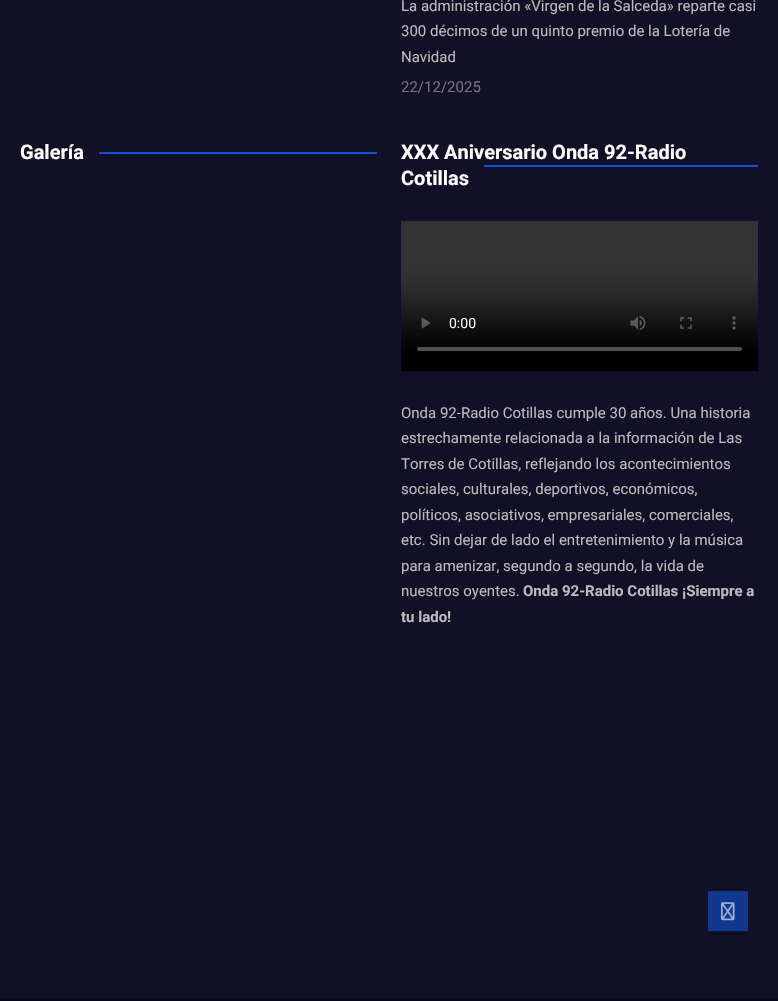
void draw(SkCanvas* canvas) {
  SkPaint paint;
  paint.setAntiAlias(true);
  auto face = [&](const char* family, int weight, float size, bool italic = false) {
    SkFontStyle style(weight, SkFontStyle::kNormal_Width,
      italic ? SkFontStyle::kItalic_Slant : SkFontStyle::kUpright_Slant);
    SkFont result(fontMgr->matchFamilyStyle(family, style), size);
    result.setSubpixel(true);
    return result;
  };
  auto paste = [&](const char* path, float x, float y, float w, float h) {
    auto image = SkImages::DeferredFromEncodedData(SkData::MakeFromFileName(path));
    canvas->drawImageRect(image, SkRect::MakeXYWH(x, y, w, h), SkSamplingOptions());
  };
  canvas->clear(0xff121026);
  paint.setColor(0xff1151d3);
  canvas->drawRect(SkRect::MakeXYWH(99, 152, 278, 2), paint);
  canvas->drawRect(SkRect::MakeXYWH(484, 165, 274, 2), paint);
  paste("img/1.png", 401, 221, 357, 150);
  paint.setColor(0xff090818);
  canvas->drawRect(SkRect::MakeXYWH(0, 998, 778, 3), paint);
  paint.setColor(0xff11378e);
  canvas->drawRect(SkRect::MakeXYWH(708, 891, 40, 40), paint);
  paste("img/2.png", 721, 902, 14, 19);
  auto f0 = face("Roboto", 400, 15);
  paint.setColor(0xffbbbbbb);
  {
    const struct { const char* s; float x, y; } items[] = {
      {"La administración «Virgen de la Salceda» reparte casi", 401, 11},
      {"300 décimos de un quinto premio de la Lotería de", 401, 36},
      {"Navidad", 401, 62},
    };
    for (auto [s, x, y] : items) {
      canvas->drawString(s, x, y, f0, paint);
    }
  }
  paint.setColor(0xff74727b);
  canvas->drawString("22/12/2025", 401, 92, f0, paint);
  auto f1 = face("Roboto", 700, 20);
  paint.setColor(0xffffffff);
  {
    const struct { const char* s; float x, y; } items[] = {
      {"Galería", 20, 159},
      {"XXX Aniversario Onda 92-Radio", 401, 159},
      {"Cotillas", 401, 185},
    };
    for (auto [s, x, y] : items) {
      canvas->drawString(s, x, y, f1, paint);
    }
  }
  paint.setColor(0xffbbbbbb);
  {
    const struct { const char* s; float x, y; } items[] = {
      {"Onda 92-Radio Cotillas cumple 30 años. Una historia", 401, 418},
      {"estrechamente relacionada a la información de Las", 401, 443},
      {"Torres de Cotillas, reflejando los acontecimientos", 401, 469},
      {"sociales, culturales, deportivos, económicos,", 401, 494},
      {"políticos, asociativos, empresariales, comerciales,", 401, 520},
      {"etc. Sin dejar de lado el entretenimiento y la música", 401, 545},
      {"para amenizar, segundo a segundo, la vida de", 401, 571},
      {"nuestros oyentes.", 401, 596},
    };
    for (auto [s, x, y] : items) {
      canvas->drawString(s, x, y, f0, paint);
    }
  }
  auto f2 = face("Roboto", 700, 15);
  canvas->drawString("Onda 92-Radio Cotillas ¡Siempre a", 523, 596, f2, paint);
  canvas->drawString("tu lado!", 401, 622, f2, paint);
}
